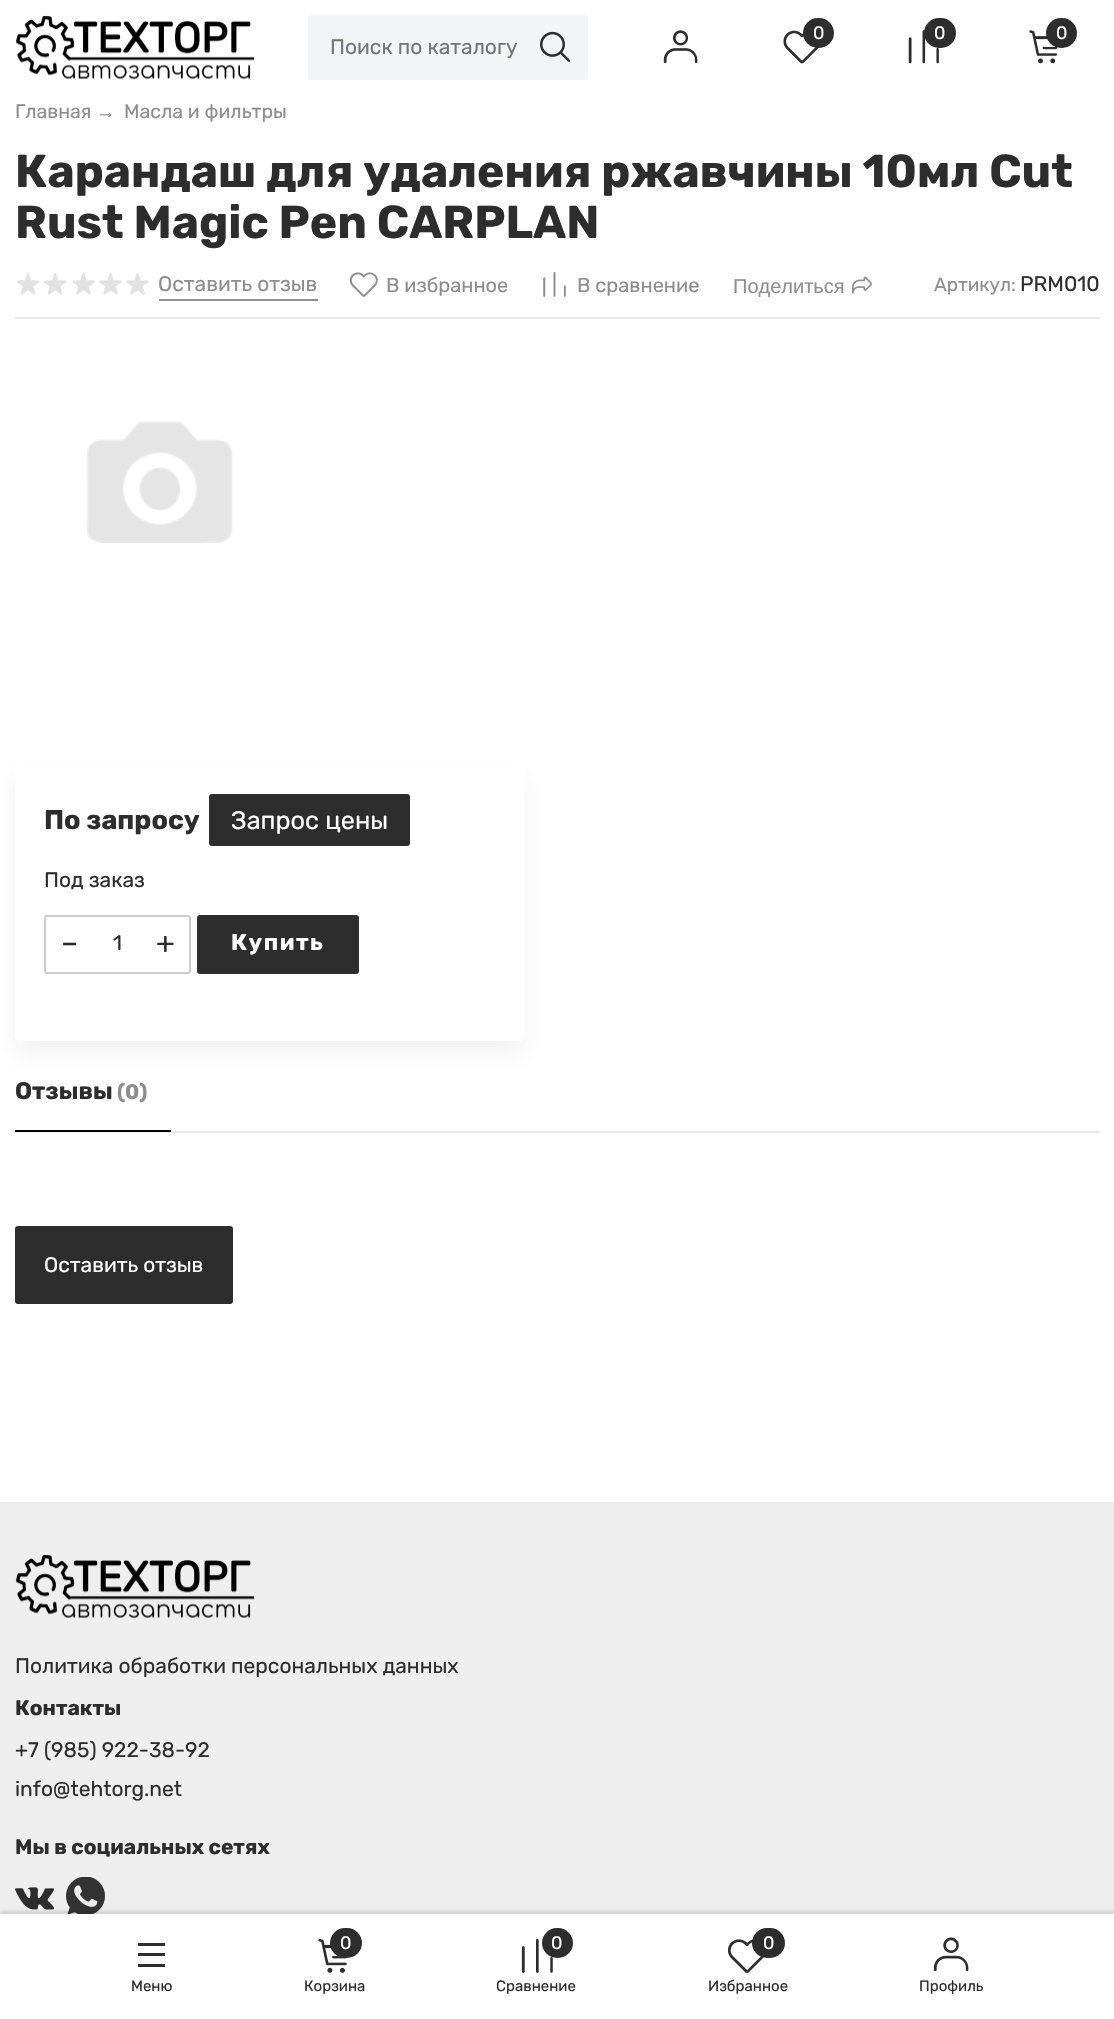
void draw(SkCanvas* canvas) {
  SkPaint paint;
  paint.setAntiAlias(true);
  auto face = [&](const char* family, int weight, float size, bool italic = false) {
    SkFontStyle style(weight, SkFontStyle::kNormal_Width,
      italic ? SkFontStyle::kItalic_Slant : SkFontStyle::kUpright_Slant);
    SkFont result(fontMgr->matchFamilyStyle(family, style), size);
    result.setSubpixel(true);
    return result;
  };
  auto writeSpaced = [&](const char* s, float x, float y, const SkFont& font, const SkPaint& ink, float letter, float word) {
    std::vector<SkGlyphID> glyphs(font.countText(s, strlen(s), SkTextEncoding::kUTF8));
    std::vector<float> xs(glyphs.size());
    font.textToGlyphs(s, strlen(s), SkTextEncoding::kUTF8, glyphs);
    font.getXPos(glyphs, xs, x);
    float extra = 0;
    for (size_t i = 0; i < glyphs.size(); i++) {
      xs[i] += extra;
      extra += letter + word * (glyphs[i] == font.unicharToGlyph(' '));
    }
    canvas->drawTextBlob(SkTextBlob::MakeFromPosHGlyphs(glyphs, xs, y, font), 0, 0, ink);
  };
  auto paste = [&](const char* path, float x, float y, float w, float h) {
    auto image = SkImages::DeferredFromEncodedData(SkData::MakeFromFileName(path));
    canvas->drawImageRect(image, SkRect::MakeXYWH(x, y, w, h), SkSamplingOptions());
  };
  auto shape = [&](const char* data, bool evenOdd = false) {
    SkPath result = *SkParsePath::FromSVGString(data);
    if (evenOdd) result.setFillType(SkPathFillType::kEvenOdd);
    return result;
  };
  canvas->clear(0xffffffff);
  paste("img/1.png", 15, 15, 240, 65);
  paste("img/2.png", 663, 30, 35, 34);
  paste("img/3.png", 783, 30, 36, 34);
  paint.setColor(0xff2d2d2d);
  canvas->drawRoundRect(SkRect::MakeXYWH(803, 18, 31, 30), 15, 15, paint);
  paste("img/4.png", 908, 30, 31, 34);
  canvas->drawRoundRect(SkRect::MakeXYWH(924, 18, 32, 30), 15, 15, paint);
  paste("img/5.png", 1029, 30, 29, 34);
  canvas->drawRoundRect(SkRect::MakeXYWH(1046, 18, 31, 30), 15, 15, paint);
  paint.setColor(0xfff3f4f7);
  canvas->drawRoundRect(SkRect::MakeXYWH(309, 16, 278, 63), 2, 2, paint);
  paint.setStroke(true);
  paint.setStrokeWidth(2);
  canvas->drawRoundRect(SkRect::MakeXYWH(309, 16, 278, 63), 2, 2, paint);
  paste("img/6.png", 540, 31, 30, 31);
  paint.setStroke(false);
  paint.setColor(0xffebebeb);
  canvas->drawRect(SkRect::MakeXYWH(15, 317, 1085, 2), paint);
  paste("img/7.png", 17, 273, 23, 22);
  paste("img/7.png", 44, 273, 23, 22);
  paste("img/8.png", 72, 273, 23, 22);
  paste("img/8.png", 99, 273, 23, 22);
  paste("img/8.png", 126, 273, 23, 22);
  paint.setColor(0xff8e8e8e);
  canvas->drawRect(SkRect::MakeXYWH(159, 299, 159, 2), paint);
  paste("img/9.png", 349, 272, 29, 25);
  paste("img/10.png", 543, 272, 23, 25);
  paste("img/11.png", 852, 276, 20, 18);
  paste("img/12.png", 87, 421, 146, 122);
  canvas->save();
  canvas->clipPath(shape("M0 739H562V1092H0ZM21 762H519C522.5 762 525 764.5 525 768V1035C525 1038.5 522.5 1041 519 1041H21C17.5 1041 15 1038.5 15 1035V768C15 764.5 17.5 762 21 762Z", true), true);
  paint.setColor(0x0f222222);
  paint.setMaskFilter(SkMaskFilter::MakeBlur(kNormal_SkBlurStyle, 12));
  canvas->drawRoundRect(SkRect::MakeXYWH(15, 776, 510, 279), 6, 6, paint);
  paint.setMaskFilter(nullptr);
  canvas->restore();
  paint.setColor(0xff2d2d2d);
  canvas->drawRoundRect(SkRect::MakeXYWH(209, 794, 201, 52), 3, 3, paint);
  paint.setStroke(true);
  paint.setColor(0xffcdcdcd);
  canvas->drawRoundRect(SkRect::MakeXYWH(45, 916, 145, 57), 2, 2, paint);
  paint.setStroke(false);
  paint.setColor(0xff2d2d2d);
  canvas->drawRoundRect(SkRect::MakeXYWH(197, 915, 162, 59), 3, 3, paint);
  paint.setColor(0xffebebeb);
  canvas->drawRect(SkRect::MakeXYWH(15, 1131, 1085, 2), paint);
  paint.setColor(0xff000000);
  canvas->drawRect(SkRect::MakeXYWH(15, 1130, 156, 2), paint);
  paint.setColor(0xff2d2d2d);
  canvas->drawRoundRect(SkRect::MakeXYWH(15, 1226, 218, 78), 3, 3, paint);
  paint.setColor(0xffeeeeee);
  canvas->drawRect(SkRect::MakeXYWH(0, 1502, 1114, 412), paint);
  paste("img/13.png", 15, 1554, 240, 65);
  paste("img/14.png", 15, 1887, 39, 23);
  paste("img/15.png", 66, 1877, 39, 37);
  paint.setColor(0x1f000000);
  paint.setMaskFilter(SkMaskFilter::MakeBlur(kNormal_SkBlurStyle, 1.5f));
  canvas->drawRect(SkRect::MakeXYWH(0, 1911, 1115, 105), paint);
  paint.setMaskFilter(nullptr);
  {
    const struct { float x, y, w, h; SkColor color; } items[] = {
      {0, 1914, 1114, 104, 0xffffffff},
      {138, 1943, 27, 3, 0xff2d2d2d},
      {138, 1953, 27, 3, 0xff2d2d2d},
      {138, 1964, 27, 3, 0xff2d2d2d},
    };
    for (auto [x, y, w, h, color] : items) {
      paint.setColor(color);
      canvas->drawRect(SkRect::MakeXYWH(x, y, w, h), paint);
    }
  }
  paste("img/16.png", 318, 1938, 29, 35);
  canvas->drawRoundRect(SkRect::MakeXYWH(330, 1928, 32, 30), 15, 15, paint);
  paste("img/17.png", 521, 1938, 32, 35);
  canvas->drawRoundRect(SkRect::MakeXYWH(542, 1928, 31, 30), 15, 15, paint);
  paste("img/18.png", 727, 1939, 37, 34);
  canvas->drawRoundRect(SkRect::MakeXYWH(752, 1928, 33, 30), 15, 15, paint);
  paste("img/19.png", 933, 1937, 36, 35);
  auto f0 = face("Rubik", 400, 18);
  paint.setColor(0xffffffff);
  {
    const struct { const char* s; float x, y; } items[] = {
      {"0", 813, 39},
      {"0", 934, 39},
      {"0", 1056, 39},
    };
    for (auto [s, x, y] : items) {
      canvas->drawString(s, x, y, f0, paint);
    }
  }
  auto f1 = face("Rubik", 400, 21);
  paint.setColor(0xff757575);
  canvas->drawString("Поиск по каталогу", 330, 54, f1, paint);
  auto f2 = face("Rubik", 400, 19.5f);
  paint.setColor(0xff8e8e8e);
  canvas->drawString("Главная", 15, 118, f2, paint);
  auto f3 = face("Liberation Sans", 400, 19.5f);
  canvas->drawString("→", 96, 118, f3, paint);
  canvas->drawString("Масла и фильтры", 124, 118, f2, paint);
  auto f4 = face("Rubik", 700, 46.2f);
  paint.setColor(0xff2d2d2d);
  canvas->drawString("Карандаш для удаления ржавчины 10мл Cut", 15, 187, f4, paint);
  canvas->drawString("Rust Magic Pen CARPLAN", 15, 238, f4, paint);
  paint.setColor(0xff8e8e8e);
  canvas->drawString("Оставить отзыв", 158, 291, f1, paint);
  auto f5 = face("Rubik", 400, 20);
  canvas->drawString("В избранное", 386, 292, f5, paint);
  canvas->drawString("В сравнение", 577, 292, f5, paint);
  auto f6 = face("Liberation Sans", 400, 20);
  canvas->drawString("Поделиться", 733, 293, f6, paint);
  auto f7 = face("Rubik", 400, 19);
  canvas->drawString("Артикул:", 934, 291, f7, paint);
  paint.setColor(0xff2d2d2d);
  canvas->drawString("PRM010", 1020, 291, f1, paint);
  auto f8 = face("Rubik", 700, 27);
  canvas->drawString("По запросу", 44, 829, f8, paint);
  auto f9 = face("Rubik", 400, 25.25f);
  paint.setColor(0xffffffff);
  canvas->drawString("Запрос цены", 231, 829, f9, paint);
  paint.setColor(0xff2d2d2d);
  canvas->drawString("Под заказ", 44, 887, f1, paint);
  auto f10 = face("Rubik", 400, 30);
  canvas->drawString("–", 61, 953, f10, paint);
  canvas->drawString("1", 113, 950, f1, paint);
  canvas->drawString("+", 156, 953, f10, paint);
  auto f11 = face("Rubik", 700, 23);
  paint.setColor(0xffffffff);
  writeSpaced("Купить", 231, 950, f11, paint, 1.5f, 0);
  auto f12 = face("Rubik", 700, 24);
  paint.setColor(0xff2d2d2d);
  canvas->drawString("Отзывы", 15, 1099, f12, paint);
  auto f13 = face("Rubik", 700, 21);
  paint.setColor(0xff8e8e8e);
  canvas->drawString("(0)", 117, 1099, f13, paint);
  paint.setColor(0xffffffff);
  canvas->drawString("Оставить отзыв", 44, 1272, f1, paint);
  paint.setColor(0xff2d2d2d);
  canvas->drawString("Политика обработки персональных данных", 15, 1673, f1, paint);
  canvas->drawString("Контакты", 15, 1715, f13, paint);
  canvas->drawString("+7 (985) 922-38-92", 15, 1757, f1, paint);
  canvas->drawString("info@tehtorg.net", 15, 1796, f1, paint);
  canvas->drawString("Мы в социальных сетях", 15, 1854, f13, paint);
  auto f14 = face("Rubik", 400, 15);
  canvas->drawString("Меню", 131, 1991, f14, paint);
  paint.setColor(0xffffffff);
  canvas->drawString("0", 340, 1949, f0, paint);
  paint.setColor(0xff2d2d2d);
  canvas->drawString("Корзина", 304, 1991, f14, paint);
  paint.setColor(0xffffffff);
  canvas->drawString("0", 551, 1949, f0, paint);
  paint.setColor(0xff2d2d2d);
  canvas->drawString("Сравнение", 496, 1991, f14, paint);
  paint.setColor(0xffffffff);
  canvas->drawString("0", 763, 1949, f0, paint);
  paint.setColor(0xff2d2d2d);
  canvas->drawString("Избранное", 708, 1991, f14, paint);
  canvas->drawString("Профиль", 919, 1991, f14, paint);
}
